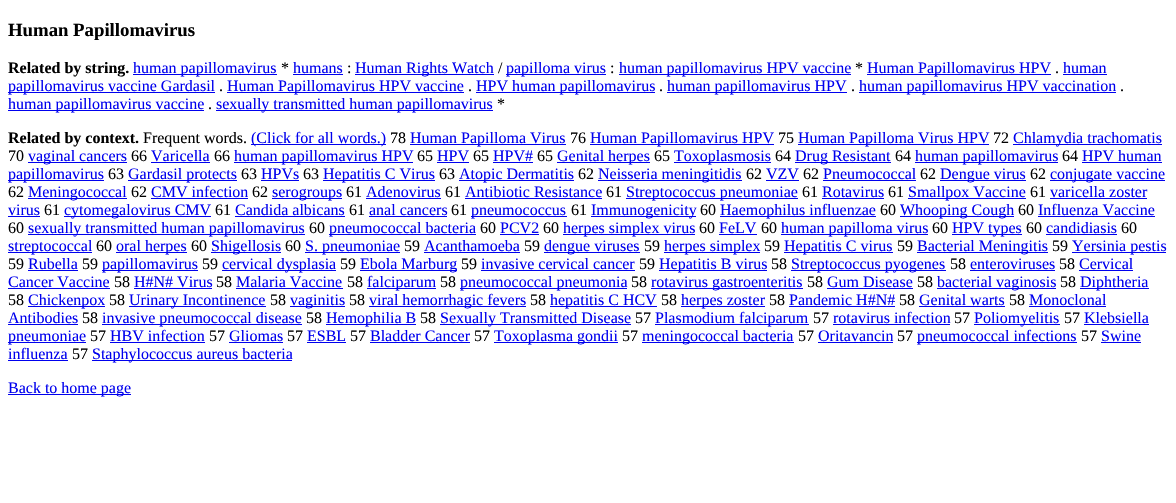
void draw(SkCanvas* canvas) {
  SkPaint paint;
  paint.setAntiAlias(true);
  auto face = [&](const char* family, int weight, float size, bool italic = false) {
    SkFontStyle style(weight, SkFontStyle::kNormal_Width,
      italic ? SkFontStyle::kItalic_Slant : SkFontStyle::kUpright_Slant);
    SkFont result(fontMgr->matchFamilyStyle(family, style), size);
    result.setSubpixel(true);
    return result;
  };
  canvas->clear(0xffffffff);
  {
    const struct { float x, y, w, h; SkColor color; } items[] = {
      {133, 74, 144, 1, 0xff0000ee},
      {293, 74, 50, 1, 0xff0000ee},
      {355, 74, 139, 1, 0xff0000ee},
      {506, 74, 100, 1, 0xff0000ee},
      {619, 74, 232, 1, 0xff0000ee},
      {867, 74, 184, 1, 0xff0000ee},
      {1063, 74, 44, 1, 0xff0000ee},
      {8, 92, 207, 1, 0xff0000ee},
      {227, 92, 237, 1, 0xff0000ee},
      {476, 92, 179, 1, 0xff0000ee},
      {667, 92, 180, 1, 0xff0000ee},
      {859, 92, 257, 1, 0xff0000ee},
      {8, 110, 196, 1, 0xff0000ee},
      {216, 110, 277, 1, 0xff0000ee},
      {251, 144, 135, 1, 0xff0000ee},
      {410, 144, 156, 1, 0xff0000ee},
      {590, 144, 184, 1, 0xff0000ee},
      {798, 144, 191, 1, 0xff0000ee},
      {1013, 144, 149, 1, 0xff0000ee},
      {28, 162, 99, 1, 0xff0000ee},
      {151, 162, 59, 1, 0xff0000ee},
      {234, 162, 179, 1, 0xff0000ee},
      {437, 162, 32, 1, 0xff0000ee},
      {493, 162, 40, 1, 0xff0000ee},
      {557, 162, 93, 1, 0xff0000ee},
      {674, 162, 97, 1, 0xff0000ee},
      {795, 162, 96, 1, 0xff0000ee},
      {915, 162, 143, 1, 0xff0000ee},
      {1082, 162, 80, 1, 0xff0000ee},
      {8, 180, 96, 1, 0xff0000ee},
      {128, 180, 109, 1, 0xff0000ee},
      {261, 180, 38, 1, 0xff0000ee},
      {323, 180, 112, 1, 0xff0000ee},
      {459, 180, 115, 1, 0xff0000ee},
      {598, 180, 144, 1, 0xff0000ee},
      {766, 180, 33, 1, 0xff0000ee},
      {823, 180, 93, 1, 0xff0000ee},
      {940, 180, 86, 1, 0xff0000ee},
      {1050, 180, 115, 1, 0xff0000ee},
      {28, 198, 99, 1, 0xff0000ee},
      {151, 198, 97, 1, 0xff0000ee},
      {272, 198, 70, 1, 0xff0000ee},
      {366, 198, 75, 1, 0xff0000ee},
      {465, 198, 137, 1, 0xff0000ee},
      {626, 198, 172, 1, 0xff0000ee},
      {822, 198, 62, 1, 0xff0000ee},
      {908, 198, 118, 1, 0xff0000ee},
      {1050, 198, 97, 1, 0xff0000ee},
      {8, 216, 32, 1, 0xff0000ee},
      {64, 216, 147, 1, 0xff0000ee},
      {235, 216, 110, 1, 0xff0000ee},
      {369, 216, 78, 1, 0xff0000ee},
      {471, 216, 96, 1, 0xff0000ee},
      {591, 216, 105, 1, 0xff0000ee},
      {720, 216, 156, 1, 0xff0000ee},
      {900, 216, 114, 1, 0xff0000ee},
      {1038, 216, 117, 1, 0xff0000ee},
      {28, 234, 277, 1, 0xff0000ee},
      {329, 234, 147, 1, 0xff0000ee},
      {500, 234, 39, 1, 0xff0000ee},
      {563, 234, 132, 1, 0xff0000ee},
      {719, 234, 38, 1, 0xff0000ee},
      {781, 234, 147, 1, 0xff0000ee},
      {952, 234, 70, 1, 0xff0000ee},
      {1046, 234, 71, 1, 0xff0000ee},
      {8, 252, 84, 1, 0xff0000ee},
      {116, 252, 71, 1, 0xff0000ee},
      {211, 252, 70, 1, 0xff0000ee},
      {305, 252, 95, 1, 0xff0000ee},
      {424, 252, 96, 1, 0xff0000ee},
      {544, 252, 96, 1, 0xff0000ee},
      {664, 252, 96, 1, 0xff0000ee},
      {784, 252, 109, 1, 0xff0000ee},
      {917, 252, 131, 1, 0xff0000ee},
      {1072, 252, 94, 1, 0xff0000ee},
      {28, 270, 50, 1, 0xff0000ee},
      {102, 270, 96, 1, 0xff0000ee},
      {222, 270, 114, 1, 0xff0000ee},
      {360, 270, 97, 1, 0xff0000ee},
      {481, 270, 154, 1, 0xff0000ee},
      {659, 270, 108, 1, 0xff0000ee},
      {791, 270, 155, 1, 0xff0000ee},
      {970, 270, 85, 1, 0xff0000ee},
      {1079, 270, 54, 1, 0xff0000ee},
      {8, 288, 102, 1, 0xff0000ee},
      {134, 288, 78, 1, 0xff0000ee},
      {236, 288, 107, 1, 0xff0000ee},
      {367, 288, 69, 1, 0xff0000ee},
      {460, 288, 167, 1, 0xff0000ee},
      {651, 288, 152, 1, 0xff0000ee},
      {827, 288, 86, 1, 0xff0000ee},
      {937, 288, 119, 1, 0xff0000ee},
      {1080, 288, 69, 1, 0xff0000ee},
      {28, 306, 77, 1, 0xff0000ee},
      {129, 306, 137, 1, 0xff0000ee},
      {290, 306, 55, 1, 0xff0000ee},
      {369, 306, 157, 1, 0xff0000ee},
      {550, 306, 107, 1, 0xff0000ee},
      {681, 306, 84, 1, 0xff0000ee},
      {789, 306, 106, 1, 0xff0000ee},
      {919, 306, 86, 1, 0xff0000ee},
      {1029, 306, 77, 1, 0xff0000ee},
      {8, 324, 70, 1, 0xff0000ee},
      {102, 324, 200, 1, 0xff0000ee},
      {326, 324, 90, 1, 0xff0000ee},
      {440, 324, 191, 1, 0xff0000ee},
      {655, 324, 154, 1, 0xff0000ee},
      {833, 324, 117, 1, 0xff0000ee},
      {974, 324, 86, 1, 0xff0000ee},
      {1084, 324, 65, 1, 0xff0000ee},
      {8, 342, 78, 1, 0xff0000ee},
      {110, 342, 95, 1, 0xff0000ee},
      {229, 342, 54, 1, 0xff0000ee},
      {307, 342, 39, 1, 0xff0000ee},
      {370, 342, 100, 1, 0xff0000ee},
      {494, 342, 124, 1, 0xff0000ee},
      {642, 342, 152, 1, 0xff0000ee},
      {818, 342, 75, 1, 0xff0000ee},
      {917, 342, 160, 1, 0xff0000ee},
      {1101, 342, 40, 1, 0xff0000ee},
      {8, 360, 60, 1, 0xff0000ee},
      {92, 360, 200, 1, 0xff0000ee},
      {8, 394, 123, 1, 0xff0000ee},
    };
    for (auto [x, y, w, h, color] : items) {
      paint.setColor(color);
      canvas->drawRect(SkRect::MakeXYWH(x, y, w, h), paint);
    }
  }
  auto f0 = face("Liberation Serif", 700, 18.75f);
  paint.setColor(0xff000000);
  canvas->drawString("Human Papillomavirus", 8, 36, f0, paint);
  auto f1 = face("Liberation Serif", 700, 16);
  canvas->drawString("Related by string.", 8, 73, f1, paint);
  auto f2 = face("Liberation Serif", 400, 16);
  paint.setColor(0xff0000ee);
  canvas->drawString("human papillomavirus", 133, 73, f2, paint);
  paint.setColor(0xff000000);
  canvas->drawString("*", 281, 73, f2, paint);
  paint.setColor(0xff0000ee);
  canvas->drawString("humans", 293, 73, f2, paint);
  paint.setColor(0xff000000);
  canvas->drawString(":", 347, 73, f2, paint);
  paint.setColor(0xff0000ee);
  canvas->drawString("Human Rights Watch", 355, 73, f2, paint);
  paint.setColor(0xff000000);
  canvas->drawString("/", 498, 73, f2, paint);
  paint.setColor(0xff0000ee);
  canvas->drawString("papilloma virus", 506, 73, f2, paint);
  paint.setColor(0xff000000);
  canvas->drawString(":", 610, 73, f2, paint);
  paint.setColor(0xff0000ee);
  canvas->drawString("human papillomavirus HPV vaccine", 619, 73, f2, paint);
  paint.setColor(0xff000000);
  canvas->drawString("*", 855, 73, f2, paint);
  paint.setColor(0xff0000ee);
  canvas->drawString("Human Papillomavirus HPV", 867, 73, f2, paint);
  paint.setColor(0xff000000);
  canvas->drawString(".", 1055, 73, f2, paint);
  paint.setColor(0xff0000ee);
  canvas->drawString("human", 1063, 73, f2, paint);
  canvas->drawString("papillomavirus vaccine Gardasil", 8, 91, f2, paint);
  paint.setColor(0xff000000);
  canvas->drawString(".", 219, 91, f2, paint);
  paint.setColor(0xff0000ee);
  canvas->drawString("Human Papillomavirus HPV vaccine", 227, 91, f2, paint);
  paint.setColor(0xff000000);
  canvas->drawString(".", 468, 91, f2, paint);
  paint.setColor(0xff0000ee);
  canvas->drawString("HPV human papillomavirus", 476, 91, f2, paint);
  paint.setColor(0xff000000);
  canvas->drawString(".", 659, 91, f2, paint);
  paint.setColor(0xff0000ee);
  canvas->drawString("human papillomavirus HPV", 667, 91, f2, paint);
  paint.setColor(0xff000000);
  canvas->drawString(".", 851, 91, f2, paint);
  paint.setColor(0xff0000ee);
  canvas->drawString("human papillomavirus HPV vaccination", 859, 91, f2, paint);
  paint.setColor(0xff000000);
  canvas->drawString(".", 1120, 91, f2, paint);
  paint.setColor(0xff0000ee);
  canvas->drawString("human papillomavirus vaccine", 8, 109, f2, paint);
  canvas->drawString("sexually transmitted human papillomavirus", 216, 109, f2, paint);
  paint.setColor(0xff000000);
  canvas->drawString("*", 497, 109, f2, paint);
  canvas->drawString(".", 208, 109, f2, paint);
  canvas->drawString("Related by context.", 8, 143, f1, paint);
  canvas->drawString("Frequent words.", 143, 143, f2, paint);
  paint.setColor(0xff0000ee);
  canvas->drawString("(Click for all words.)", 251, 143, f2, paint);
  paint.setColor(0xff000000);
  canvas->drawString("78", 390, 143, f2, paint);
  paint.setColor(0xff0000ee);
  canvas->drawString("Human Papilloma Virus", 410, 143, f2, paint);
  paint.setColor(0xff000000);
  canvas->drawString("76", 570, 143, f2, paint);
  paint.setColor(0xff0000ee);
  canvas->drawString("Human Papillomavirus HPV", 590, 143, f2, paint);
  paint.setColor(0xff000000);
  canvas->drawString("75", 778, 143, f2, paint);
  paint.setColor(0xff0000ee);
  canvas->drawString("Human Papilloma Virus HPV", 798, 143, f2, paint);
  paint.setColor(0xff000000);
  canvas->drawString("72", 993, 143, f2, paint);
  paint.setColor(0xff0000ee);
  canvas->drawString("Chlamydia trachomatis", 1013, 143, f2, paint);
  paint.setColor(0xff000000);
  canvas->drawString("70", 8, 161, f2, paint);
  paint.setColor(0xff0000ee);
  canvas->drawString("vaginal cancers", 28, 161, f2, paint);
  paint.setColor(0xff000000);
  canvas->drawString("66", 131, 161, f2, paint);
  paint.setColor(0xff0000ee);
  canvas->drawString("Varicella", 151, 161, f2, paint);
  paint.setColor(0xff000000);
  canvas->drawString("66", 214, 161, f2, paint);
  paint.setColor(0xff0000ee);
  canvas->drawString("human papillomavirus HPV", 234, 161, f2, paint);
  paint.setColor(0xff000000);
  canvas->drawString("65", 417, 161, f2, paint);
  paint.setColor(0xff0000ee);
  canvas->drawString("HPV", 437, 161, f2, paint);
  paint.setColor(0xff000000);
  canvas->drawString("65", 473, 161, f2, paint);
  paint.setColor(0xff0000ee);
  canvas->drawString("HPV#", 493, 161, f2, paint);
  paint.setColor(0xff000000);
  canvas->drawString("65", 537, 161, f2, paint);
  paint.setColor(0xff0000ee);
  canvas->drawString("Genital herpes", 557, 161, f2, paint);
  paint.setColor(0xff000000);
  canvas->drawString("65", 654, 161, f2, paint);
  paint.setColor(0xff0000ee);
  canvas->drawString("Toxoplasmosis", 674, 161, f2, paint);
  paint.setColor(0xff000000);
  canvas->drawString("64", 775, 161, f2, paint);
  paint.setColor(0xff0000ee);
  canvas->drawString("Drug Resistant", 795, 161, f2, paint);
  paint.setColor(0xff000000);
  canvas->drawString("64", 895, 161, f2, paint);
  paint.setColor(0xff0000ee);
  canvas->drawString("human papillomavirus", 915, 161, f2, paint);
  paint.setColor(0xff000000);
  canvas->drawString("64", 1062, 161, f2, paint);
  paint.setColor(0xff0000ee);
  canvas->drawString("HPV human", 1082, 161, f2, paint);
  canvas->drawString("papillomavirus", 8, 179, f2, paint);
  paint.setColor(0xff000000);
  canvas->drawString("63", 108, 179, f2, paint);
  paint.setColor(0xff0000ee);
  canvas->drawString("Gardasil protects", 128, 179, f2, paint);
  paint.setColor(0xff000000);
  canvas->drawString("63", 241, 179, f2, paint);
  paint.setColor(0xff0000ee);
  canvas->drawString("HPVs", 261, 179, f2, paint);
  paint.setColor(0xff000000);
  canvas->drawString("63", 303, 179, f2, paint);
  paint.setColor(0xff0000ee);
  canvas->drawString("Hepatitis C Virus", 323, 179, f2, paint);
  paint.setColor(0xff000000);
  canvas->drawString("63", 439, 179, f2, paint);
  paint.setColor(0xff0000ee);
  canvas->drawString("Atopic Dermatitis", 459, 179, f2, paint);
  paint.setColor(0xff000000);
  canvas->drawString("62", 578, 179, f2, paint);
  paint.setColor(0xff0000ee);
  canvas->drawString("Neisseria meningitidis", 598, 179, f2, paint);
  paint.setColor(0xff000000);
  canvas->drawString("62", 746, 179, f2, paint);
  paint.setColor(0xff0000ee);
  canvas->drawString("VZV", 766, 179, f2, paint);
  paint.setColor(0xff000000);
  canvas->drawString("62", 803, 179, f2, paint);
  paint.setColor(0xff0000ee);
  canvas->drawString("Pneumococcal", 823, 179, f2, paint);
  paint.setColor(0xff000000);
  canvas->drawString("62", 920, 179, f2, paint);
  paint.setColor(0xff0000ee);
  canvas->drawString("Dengue virus", 940, 179, f2, paint);
  paint.setColor(0xff000000);
  canvas->drawString("62", 1030, 179, f2, paint);
  paint.setColor(0xff0000ee);
  canvas->drawString("conjugate vaccine", 1050, 179, f2, paint);
  paint.setColor(0xff000000);
  canvas->drawString("62", 8, 197, f2, paint);
  paint.setColor(0xff0000ee);
  canvas->drawString("Meningococcal", 28, 197, f2, paint);
  paint.setColor(0xff000000);
  canvas->drawString("62", 131, 197, f2, paint);
  paint.setColor(0xff0000ee);
  canvas->drawString("CMV infection", 151, 197, f2, paint);
  paint.setColor(0xff000000);
  canvas->drawString("62", 252, 197, f2, paint);
  paint.setColor(0xff0000ee);
  canvas->drawString("serogroups", 272, 197, f2, paint);
  paint.setColor(0xff000000);
  canvas->drawString("61", 346, 197, f2, paint);
  paint.setColor(0xff0000ee);
  canvas->drawString("Adenovirus", 366, 197, f2, paint);
  paint.setColor(0xff000000);
  canvas->drawString("61", 445, 197, f2, paint);
  paint.setColor(0xff0000ee);
  canvas->drawString("Antibiotic Resistance", 465, 197, f2, paint);
  paint.setColor(0xff000000);
  canvas->drawString("61", 606, 197, f2, paint);
  paint.setColor(0xff0000ee);
  canvas->drawString("Streptococcus pneumoniae", 626, 197, f2, paint);
  paint.setColor(0xff000000);
  canvas->drawString("61", 802, 197, f2, paint);
  paint.setColor(0xff0000ee);
  canvas->drawString("Rotavirus", 822, 197, f2, paint);
  paint.setColor(0xff000000);
  canvas->drawString("61", 888, 197, f2, paint);
  paint.setColor(0xff0000ee);
  canvas->drawString("Smallpox Vaccine", 908, 197, f2, paint);
  paint.setColor(0xff000000);
  canvas->drawString("61", 1030, 197, f2, paint);
  paint.setColor(0xff0000ee);
  canvas->drawString("varicella zoster", 1050, 197, f2, paint);
  canvas->drawString("virus", 8, 215, f2, paint);
  paint.setColor(0xff000000);
  canvas->drawString("61", 44, 215, f2, paint);
  paint.setColor(0xff0000ee);
  canvas->drawString("cytomegalovirus CMV", 64, 215, f2, paint);
  paint.setColor(0xff000000);
  canvas->drawString("61", 215, 215, f2, paint);
  paint.setColor(0xff0000ee);
  canvas->drawString("Candida albicans", 235, 215, f2, paint);
  paint.setColor(0xff000000);
  canvas->drawString("61", 349, 215, f2, paint);
  paint.setColor(0xff0000ee);
  canvas->drawString("anal cancers", 369, 215, f2, paint);
  paint.setColor(0xff000000);
  canvas->drawString("61", 451, 215, f2, paint);
  paint.setColor(0xff0000ee);
  canvas->drawString("pneumococcus", 471, 215, f2, paint);
  paint.setColor(0xff000000);
  canvas->drawString("61", 571, 215, f2, paint);
  paint.setColor(0xff0000ee);
  canvas->drawString("Immunogenicity", 591, 215, f2, paint);
  paint.setColor(0xff000000);
  canvas->drawString("60", 700, 215, f2, paint);
  paint.setColor(0xff0000ee);
  canvas->drawString("Haemophilus influenzae", 720, 215, f2, paint);
  paint.setColor(0xff000000);
  canvas->drawString("60", 880, 215, f2, paint);
  paint.setColor(0xff0000ee);
  canvas->drawString("Whooping Cough", 900, 215, f2, paint);
  paint.setColor(0xff000000);
  canvas->drawString("60", 1018, 215, f2, paint);
  paint.setColor(0xff0000ee);
  canvas->drawString("Influenza Vaccine", 1038, 215, f2, paint);
  paint.setColor(0xff000000);
  canvas->drawString("60", 8, 233, f2, paint);
  paint.setColor(0xff0000ee);
  canvas->drawString("sexually transmitted human papillomavirus", 28, 233, f2, paint);
  paint.setColor(0xff000000);
  canvas->drawString("60", 309, 233, f2, paint);
  paint.setColor(0xff0000ee);
  canvas->drawString("pneumococcal bacteria", 329, 233, f2, paint);
  paint.setColor(0xff000000);
  canvas->drawString("60", 480, 233, f2, paint);
  paint.setColor(0xff0000ee);
  canvas->drawString("PCV2", 500, 233, f2, paint);
  paint.setColor(0xff000000);
  canvas->drawString("60", 543, 233, f2, paint);
  paint.setColor(0xff0000ee);
  canvas->drawString("herpes simplex virus", 563, 233, f2, paint);
  paint.setColor(0xff000000);
  canvas->drawString("60", 699, 233, f2, paint);
  paint.setColor(0xff0000ee);
  canvas->drawString("FeLV", 719, 233, f2, paint);
  paint.setColor(0xff000000);
  canvas->drawString("60", 761, 233, f2, paint);
  paint.setColor(0xff0000ee);
  canvas->drawString("human papilloma virus", 781, 233, f2, paint);
  paint.setColor(0xff000000);
  canvas->drawString("60", 932, 233, f2, paint);
  paint.setColor(0xff0000ee);
  canvas->drawString("HPV types", 952, 233, f2, paint);
  paint.setColor(0xff000000);
  canvas->drawString("60", 1026, 233, f2, paint);
  paint.setColor(0xff0000ee);
  canvas->drawString("candidiasis", 1046, 233, f2, paint);
  paint.setColor(0xff000000);
  canvas->drawString("60", 1121, 233, f2, paint);
  paint.setColor(0xff0000ee);
  canvas->drawString("streptococcal", 8, 251, f2, paint);
  paint.setColor(0xff000000);
  canvas->drawString("60", 96, 251, f2, paint);
  paint.setColor(0xff0000ee);
  canvas->drawString("oral herpes", 116, 251, f2, paint);
  paint.setColor(0xff000000);
  canvas->drawString("60", 191, 251, f2, paint);
  paint.setColor(0xff0000ee);
  canvas->drawString("Shigellosis", 211, 251, f2, paint);
  paint.setColor(0xff000000);
  canvas->drawString("60", 285, 251, f2, paint);
  paint.setColor(0xff0000ee);
  canvas->drawString("S. pneumoniae", 305, 251, f2, paint);
  paint.setColor(0xff000000);
  canvas->drawString("59", 404, 251, f2, paint);
  paint.setColor(0xff0000ee);
  canvas->drawString("Acanthamoeba", 424, 251, f2, paint);
  paint.setColor(0xff000000);
  canvas->drawString("59", 524, 251, f2, paint);
  paint.setColor(0xff0000ee);
  canvas->drawString("dengue viruses", 544, 251, f2, paint);
  paint.setColor(0xff000000);
  canvas->drawString("59", 644, 251, f2, paint);
  paint.setColor(0xff0000ee);
  canvas->drawString("herpes simplex", 664, 251, f2, paint);
  paint.setColor(0xff000000);
  canvas->drawString("59", 764, 251, f2, paint);
  paint.setColor(0xff0000ee);
  canvas->drawString("Hepatitis C virus", 784, 251, f2, paint);
  paint.setColor(0xff000000);
  canvas->drawString("59", 897, 251, f2, paint);
  paint.setColor(0xff0000ee);
  canvas->drawString("Bacterial Meningitis", 917, 251, f2, paint);
  paint.setColor(0xff000000);
  canvas->drawString("59", 1052, 251, f2, paint);
  paint.setColor(0xff0000ee);
  canvas->drawString("Yersinia pestis", 1072, 251, f2, paint);
  paint.setColor(0xff000000);
  canvas->drawString("59", 8, 269, f2, paint);
  paint.setColor(0xff0000ee);
  canvas->drawString("Rubella", 28, 269, f2, paint);
  paint.setColor(0xff000000);
  canvas->drawString("59", 82, 269, f2, paint);
  paint.setColor(0xff0000ee);
  canvas->drawString("papillomavirus", 102, 269, f2, paint);
  paint.setColor(0xff000000);
  canvas->drawString("59", 202, 269, f2, paint);
  paint.setColor(0xff0000ee);
  canvas->drawString("cervical dysplasia", 222, 269, f2, paint);
  paint.setColor(0xff000000);
  canvas->drawString("59", 340, 269, f2, paint);
  paint.setColor(0xff0000ee);
  canvas->drawString("Ebola Marburg", 360, 269, f2, paint);
  paint.setColor(0xff000000);
  canvas->drawString("59", 461, 269, f2, paint);
  paint.setColor(0xff0000ee);
  canvas->drawString("invasive cervical cancer", 481, 269, f2, paint);
  paint.setColor(0xff000000);
  canvas->drawString("59", 639, 269, f2, paint);
  paint.setColor(0xff0000ee);
  canvas->drawString("Hepatitis B virus", 659, 269, f2, paint);
  paint.setColor(0xff000000);
  canvas->drawString("58", 771, 269, f2, paint);
  paint.setColor(0xff0000ee);
  canvas->drawString("Streptococcus pyogenes", 791, 269, f2, paint);
  paint.setColor(0xff000000);
  canvas->drawString("58", 950, 269, f2, paint);
  paint.setColor(0xff0000ee);
  canvas->drawString("enteroviruses", 970, 269, f2, paint);
  paint.setColor(0xff000000);
  canvas->drawString("58", 1059, 269, f2, paint);
  paint.setColor(0xff0000ee);
  canvas->drawString("Cervical", 1079, 269, f2, paint);
  canvas->drawString("Cancer Vaccine", 8, 287, f2, paint);
  paint.setColor(0xff000000);
  canvas->drawString("58", 114, 287, f2, paint);
  paint.setColor(0xff0000ee);
  canvas->drawString("H#N# Virus", 134, 287, f2, paint);
  paint.setColor(0xff000000);
  canvas->drawString("58", 216, 287, f2, paint);
  paint.setColor(0xff0000ee);
  canvas->drawString("Malaria Vaccine", 236, 287, f2, paint);
  paint.setColor(0xff000000);
  canvas->drawString("58", 347, 287, f2, paint);
  paint.setColor(0xff0000ee);
  canvas->drawString("falciparum", 367, 287, f2, paint);
  paint.setColor(0xff000000);
  canvas->drawString("58", 440, 287, f2, paint);
  paint.setColor(0xff0000ee);
  canvas->drawString("pneumococcal pneumonia", 460, 287, f2, paint);
  paint.setColor(0xff000000);
  canvas->drawString("58", 631, 287, f2, paint);
  paint.setColor(0xff0000ee);
  canvas->drawString("rotavirus gastroenteritis", 651, 287, f2, paint);
  paint.setColor(0xff000000);
  canvas->drawString("58", 807, 287, f2, paint);
  paint.setColor(0xff0000ee);
  canvas->drawString("Gum Disease", 827, 287, f2, paint);
  paint.setColor(0xff000000);
  canvas->drawString("58", 917, 287, f2, paint);
  paint.setColor(0xff0000ee);
  canvas->drawString("bacterial vaginosis", 937, 287, f2, paint);
  paint.setColor(0xff000000);
  canvas->drawString("58", 1060, 287, f2, paint);
  paint.setColor(0xff0000ee);
  canvas->drawString("Diphtheria", 1080, 287, f2, paint);
  paint.setColor(0xff000000);
  canvas->drawString("58", 8, 305, f2, paint);
  paint.setColor(0xff0000ee);
  canvas->drawString("Chickenpox", 28, 305, f2, paint);
  paint.setColor(0xff000000);
  canvas->drawString("58", 109, 305, f2, paint);
  paint.setColor(0xff0000ee);
  canvas->drawString("Urinary Incontinence", 129, 305, f2, paint);
  paint.setColor(0xff000000);
  canvas->drawString("58", 270, 305, f2, paint);
  paint.setColor(0xff0000ee);
  canvas->drawString("vaginitis", 290, 305, f2, paint);
  paint.setColor(0xff000000);
  canvas->drawString("58", 349, 305, f2, paint);
  paint.setColor(0xff0000ee);
  canvas->drawString("viral hemorrhagic fevers", 369, 305, f2, paint);
  paint.setColor(0xff000000);
  canvas->drawString("58", 530, 305, f2, paint);
  paint.setColor(0xff0000ee);
  canvas->drawString("hepatitis C HCV", 550, 305, f2, paint);
  paint.setColor(0xff000000);
  canvas->drawString("58", 661, 305, f2, paint);
  paint.setColor(0xff0000ee);
  canvas->drawString("herpes zoster", 681, 305, f2, paint);
  paint.setColor(0xff000000);
  canvas->drawString("58", 769, 305, f2, paint);
  paint.setColor(0xff0000ee);
  canvas->drawString("Pandemic H#N#", 789, 305, f2, paint);
  paint.setColor(0xff000000);
  canvas->drawString("58", 899, 305, f2, paint);
  paint.setColor(0xff0000ee);
  canvas->drawString("Genital warts", 919, 305, f2, paint);
  paint.setColor(0xff000000);
  canvas->drawString("58", 1009, 305, f2, paint);
  paint.setColor(0xff0000ee);
  canvas->drawString("Monoclonal", 1029, 305, f2, paint);
  canvas->drawString("Antibodies", 8, 323, f2, paint);
  paint.setColor(0xff000000);
  canvas->drawString("58", 82, 323, f2, paint);
  paint.setColor(0xff0000ee);
  canvas->drawString("invasive pneumococcal disease", 102, 323, f2, paint);
  paint.setColor(0xff000000);
  canvas->drawString("58", 306, 323, f2, paint);
  paint.setColor(0xff0000ee);
  canvas->drawString("Hemophilia B", 326, 323, f2, paint);
  paint.setColor(0xff000000);
  canvas->drawString("58", 420, 323, f2, paint);
  paint.setColor(0xff0000ee);
  canvas->drawString("Sexually Transmitted Disease", 440, 323, f2, paint);
  paint.setColor(0xff000000);
  canvas->drawString("57", 635, 323, f2, paint);
  paint.setColor(0xff0000ee);
  canvas->drawString("Plasmodium falciparum", 655, 323, f2, paint);
  paint.setColor(0xff000000);
  canvas->drawString("57", 813, 323, f2, paint);
  paint.setColor(0xff0000ee);
  canvas->drawString("rotavirus infection", 833, 323, f2, paint);
  paint.setColor(0xff000000);
  canvas->drawString("57", 954, 323, f2, paint);
  paint.setColor(0xff0000ee);
  canvas->drawString("Poliomyelitis", 974, 323, f2, paint);
  paint.setColor(0xff000000);
  canvas->drawString("57", 1064, 323, f2, paint);
  paint.setColor(0xff0000ee);
  canvas->drawString("Klebsiella", 1084, 323, f2, paint);
  canvas->drawString("pneumoniae", 8, 341, f2, paint);
  paint.setColor(0xff000000);
  canvas->drawString("57", 90, 341, f2, paint);
  paint.setColor(0xff0000ee);
  canvas->drawString("HBV infection", 110, 341, f2, paint);
  paint.setColor(0xff000000);
  canvas->drawString("57", 209, 341, f2, paint);
  paint.setColor(0xff0000ee);
  canvas->drawString("Gliomas", 229, 341, f2, paint);
  paint.setColor(0xff000000);
  canvas->drawString("57", 287, 341, f2, paint);
  paint.setColor(0xff0000ee);
  canvas->drawString("ESBL", 307, 341, f2, paint);
  paint.setColor(0xff000000);
  canvas->drawString("57", 350, 341, f2, paint);
  paint.setColor(0xff0000ee);
  canvas->drawString("Bladder Cancer", 370, 341, f2, paint);
  paint.setColor(0xff000000);
  canvas->drawString("57", 474, 341, f2, paint);
  paint.setColor(0xff0000ee);
  canvas->drawString("Toxoplasma gondii", 494, 341, f2, paint);
  paint.setColor(0xff000000);
  canvas->drawString("57", 622, 341, f2, paint);
  paint.setColor(0xff0000ee);
  canvas->drawString("meningococcal bacteria", 642, 341, f2, paint);
  paint.setColor(0xff000000);
  canvas->drawString("57", 798, 341, f2, paint);
  paint.setColor(0xff0000ee);
  canvas->drawString("Oritavancin", 818, 341, f2, paint);
  paint.setColor(0xff000000);
  canvas->drawString("57", 897, 341, f2, paint);
  paint.setColor(0xff0000ee);
  canvas->drawString("pneumococcal infections", 917, 341, f2, paint);
  paint.setColor(0xff000000);
  canvas->drawString("57", 1081, 341, f2, paint);
  paint.setColor(0xff0000ee);
  canvas->drawString("Swine", 1101, 341, f2, paint);
  canvas->drawString("influenza", 8, 359, f2, paint);
  paint.setColor(0xff000000);
  canvas->drawString("57", 72, 359, f2, paint);
  paint.setColor(0xff0000ee);
  canvas->drawString("Staphylococcus aureus bacteria", 92, 359, f2, paint);
  canvas->drawString("Back to home page", 8, 393, f2, paint);
}
